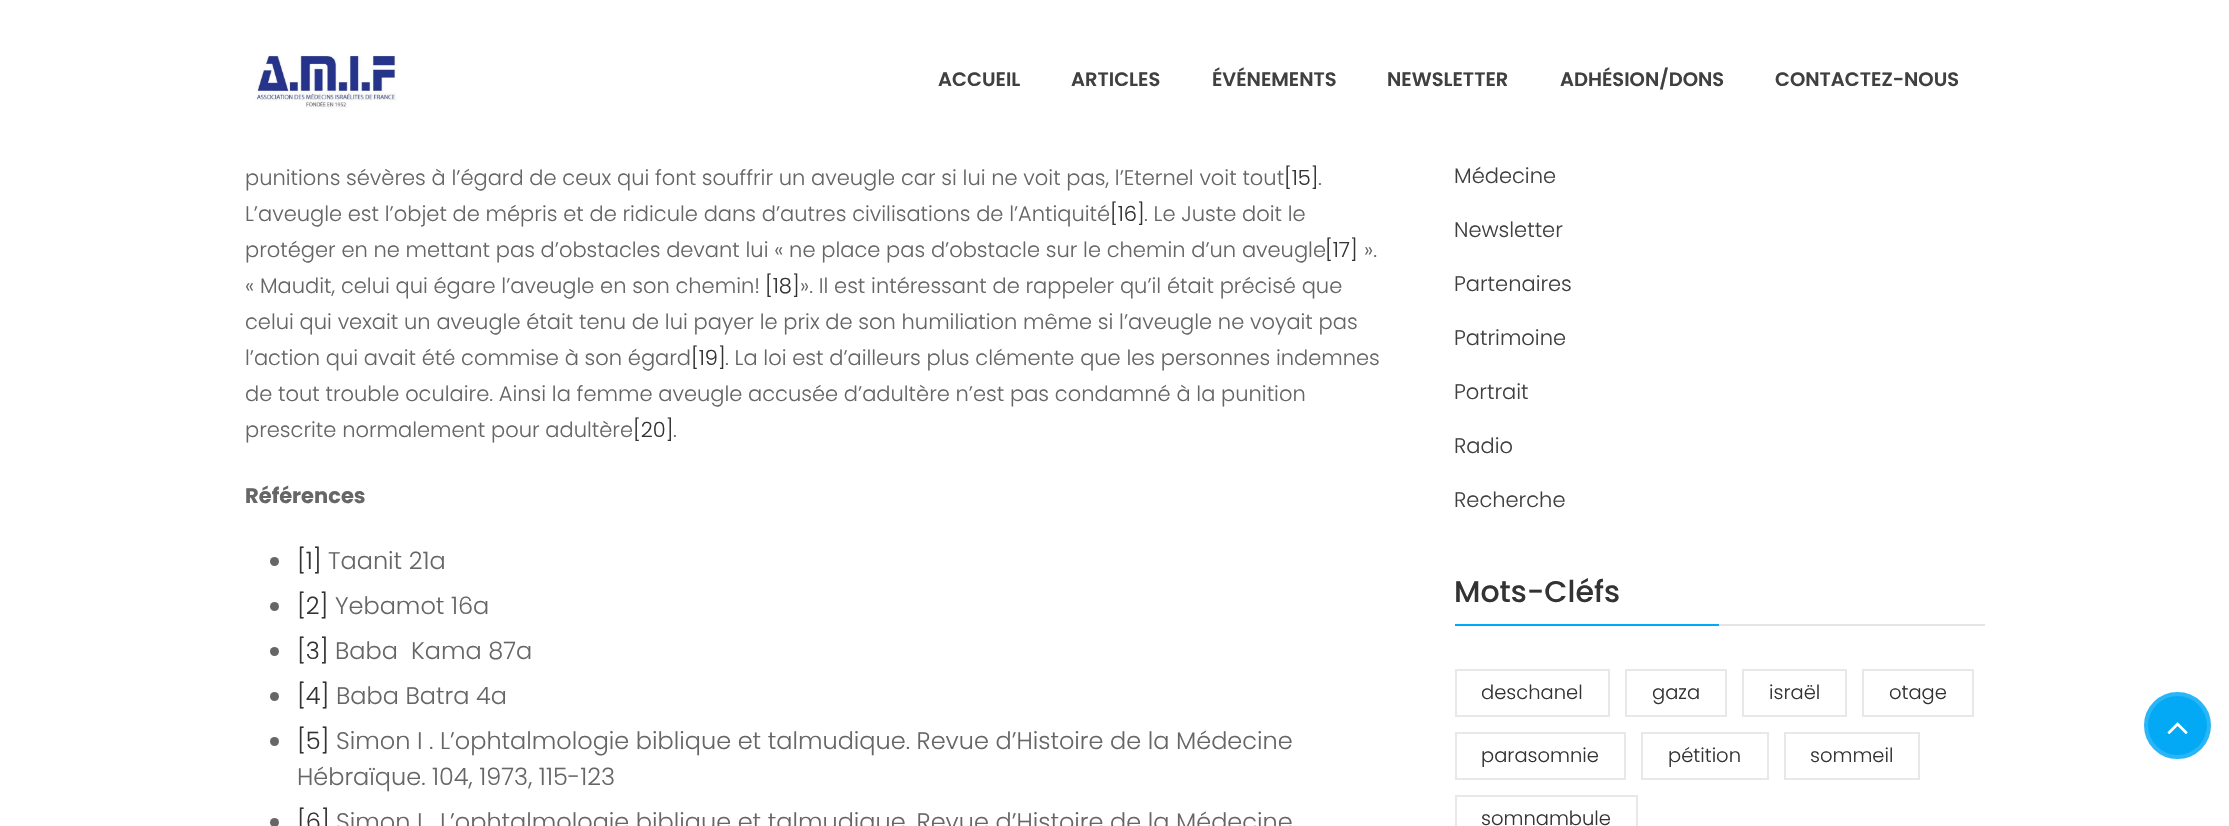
void draw(SkCanvas* canvas) {
  SkPaint paint;
  paint.setAntiAlias(true);
  auto face = [&](const char* family, int weight, float size, bool italic = false) {
    SkFontStyle style(weight, SkFontStyle::kNormal_Width,
      italic ? SkFontStyle::kItalic_Slant : SkFontStyle::kUpright_Slant);
    SkFont result(fontMgr->matchFamilyStyle(family, style), size);
    result.setSubpixel(true);
    return result;
  };
  auto paste = [&](const char* path, float x, float y, float w, float h) {
    auto image = SkImages::DeferredFromEncodedData(SkData::MakeFromFileName(path));
    canvas->drawImageRect(image, SkRect::MakeXYWH(x, y, w, h), SkSamplingOptions());
  };
  canvas->clear(0xffffffff);
  paste("img/1.png", 255, 55, 143, 53);
  paint.setColor(0xff666666);
  canvas->drawCircle(274.5f, 561.5f, 4.5f, paint);
  canvas->drawCircle(274.5f, 606.5f, 4.5f, paint);
  canvas->drawCircle(274.5f, 651.5f, 4.5f, paint);
  canvas->drawCircle(274.5f, 696.5f, 4.5f, paint);
  canvas->drawCircle(274.5f, 741.5f, 4.5f, paint);
  canvas->drawCircle(274.5f, 822.5f, 4.5f, paint);
  paint.setColor(0xffe5e5e5);
  canvas->drawRect(SkRect::MakeXYWH(1719, 624, 266, 2), paint);
  paint.setColor(0xff03a9f4);
  canvas->drawRect(SkRect::MakeXYWH(1455, 624, 264, 2), paint);
  paint.setStroke(true);
  paint.setStrokeWidth(2);
  paint.setColor(0xffe8e8e8);
  canvas->drawRect(SkRect::MakeXYWH(1456, 670, 153, 46), paint);
  canvas->drawRect(SkRect::MakeXYWH(1626, 670, 100, 46), paint);
  canvas->drawRect(SkRect::MakeXYWH(1743, 670, 103, 46), paint);
  canvas->drawRect(SkRect::MakeXYWH(1863, 670, 110, 46), paint);
  canvas->drawRect(SkRect::MakeXYWH(1456, 733, 169, 46), paint);
  canvas->drawRect(SkRect::MakeXYWH(1642, 733, 126, 46), paint);
  canvas->drawRect(SkRect::MakeXYWH(1785, 733, 134, 46), paint);
  canvas->drawRect(SkRect::MakeXYWH(1456, 796, 181, 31), paint);
  paint.setStroke(false);
  paint.setColor(0xff03a9f4);
  canvas->drawCircle(2177.5f, 725.5f, 29.5f, paint);
  paint.setStroke(true);
  paint.setStrokeWidth(5);
  paint.setColor(0xd903a9f4);
  canvas->drawCircle(2177.5f, 725.5f, 31, paint);
  paste("img/2.png", 2167, 722, 21, 12);
  auto f0 = face("Poppins", 600, 19.5f);
  paint.setStroke(false);
  paint.setColor(0xff404040);
  {
    const struct { const char* s; float x, y; } items[] = {
      {"ACCUEIL", 938, 86},
      {"ARTICLES", 1071, 86},
      {"ÉVÉNEMENTS", 1212, 86},
      {"NEWSLETTER", 1387, 86},
      {"ADHÉSION/DONS", 1560, 86},
      {"CONTACTEZ-NOUS", 1775, 86},
    };
    for (auto [s, x, y] : items) {
      canvas->drawString(s, x, y, f0, paint);
    }
  }
  auto f1 = face("Poppins", 300, 21);
  paint.setColor(0xff666666);
  canvas->drawString("punitions sévères à l’égard de ceux qui font souffrir un aveugle car si lui ne voit pas, l’Eternel voit tout", 245, 185, f1, paint);
  paint.setColor(0xff333333);
  canvas->drawString("[15]", 1284, 185, f1, paint);
  paint.setColor(0xff666666);
  canvas->drawString(".", 1318, 185, f1, paint);
  canvas->drawString("L’aveugle est l’objet de mépris et de ridicule dans d’autres civilisations de l’Antiquité", 245, 221, f1, paint);
  paint.setColor(0xff333333);
  canvas->drawString("[16]", 1110, 221, f1, paint);
  paint.setColor(0xff666666);
  canvas->drawString(". Le Juste doit le", 1144, 221, f1, paint);
  canvas->drawString("protéger en ne mettant pas d’obstacles devant lui « ne place pas d’obstacle sur le chemin d’un aveugle", 245, 257, f1, paint);
  paint.setColor(0xff333333);
  canvas->drawString("[17]", 1325, 257, f1, paint);
  paint.setColor(0xff666666);
  canvas->drawString("».", 1364, 257, f1, paint);
  canvas->drawString("« Maudit, celui qui égare l’aveugle en son chemin!", 245, 293, f1, paint);
  paint.setColor(0xff333333);
  canvas->drawString("[18]", 765, 293, f1, paint);
  paint.setColor(0xff666666);
  {
    const struct { const char* s; float x, y; } items[] = {
      {"». Il est intéressant de rappeler qu’il était précisé que", 800, 293},
      {"celui qui vexait un aveugle était tenu de lui payer le prix de son humiliation même si l’aveugle ne voyait pas", 245, 329},
      {"l’action qui avait été commise à son égard", 245, 365},
    };
    for (auto [s, x, y] : items) {
      canvas->drawString(s, x, y, f1, paint);
    }
  }
  paint.setColor(0xff333333);
  canvas->drawString("[19]", 691, 365, f1, paint);
  paint.setColor(0xff666666);
  {
    const struct { const char* s; float x, y; } items[] = {
      {". La loi est d’ailleurs plus clémente que les personnes indemnes", 725, 365},
      {"de tout trouble oculaire. Ainsi la femme aveugle accusée d’adultère n’est pas condamné à la punition", 245, 401},
      {"prescrite normalement pour adultère", 245, 437},
    };
    for (auto [s, x, y] : items) {
      canvas->drawString(s, x, y, f1, paint);
    }
  }
  paint.setColor(0xff333333);
  canvas->drawString("[20]", 633, 437, f1, paint);
  paint.setColor(0xff666666);
  canvas->drawString(".", 673, 437, f1, paint);
  auto f2 = face("Poppins", 700, 21);
  canvas->drawString("Références", 245, 503, f2, paint);
  auto f3 = face("Poppins", 300, 24);
  paint.setColor(0xff333333);
  canvas->drawString("[1]", 297, 569, f3, paint);
  paint.setColor(0xff666666);
  canvas->drawString("Taanit 21a", 328, 569, f3, paint);
  paint.setColor(0xff333333);
  canvas->drawString("[2]", 297, 614, f3, paint);
  paint.setColor(0xff666666);
  canvas->drawString("Yebamot 16a", 335, 614, f3, paint);
  paint.setColor(0xff333333);
  canvas->drawString("[3]", 297, 659, f3, paint);
  paint.setColor(0xff666666);
  canvas->drawString("Baba  Kama 87a", 335, 659, f3, paint);
  paint.setColor(0xff333333);
  canvas->drawString("[4]", 297, 704, f3, paint);
  paint.setColor(0xff666666);
  canvas->drawString("Baba Batra 4a", 336, 704, f3, paint);
  paint.setColor(0xff333333);
  canvas->drawString("[5]", 297, 749, f3, paint);
  paint.setColor(0xff666666);
  canvas->drawString("Simon I . L’ophtalmologie biblique et talmudique. Revue d’Histoire de la Médecine", 336, 749, f3, paint);
  canvas->drawString("Hébraïque. 104, 1973, 115-123", 297, 785, f3, paint);
  paint.setColor(0xff333333);
  canvas->drawString("[6]", 297, 830, f3, paint);
  paint.setColor(0xff666666);
  canvas->drawString("Simon I . L’ophtalmologie biblique et talmudique. Revue d’Histoire de la Médecine", 336, 830, f3, paint);
  paint.setColor(0xff404040);
  {
    const struct { const char* s; float x, y; } items[] = {
      {"Médecine", 1454, 183},
      {"Newsletter", 1454, 237},
      {"Partenaires", 1454, 291},
      {"Patrimoine", 1454, 345},
      {"Portrait", 1454, 399},
      {"Radio", 1454, 453},
      {"Recherche", 1454, 507},
    };
    for (auto [s, x, y] : items) {
      canvas->drawString(s, x, y, f1, paint);
    }
  }
  auto f4 = face("Poppins", 500, 30);
  paint.setColor(0xff333333);
  canvas->drawString("Mots-Cléfs", 1454, 602, f4, paint);
  auto f5 = face("Poppins", 300, 19.5f);
  {
    const struct { const char* s; float x, y; } items[] = {
      {"deschanel", 1481, 699},
      {"gaza", 1652, 699},
      {"israël", 1769, 699},
      {"otage", 1889, 699},
      {"parasomnie", 1481, 762},
      {"pétition", 1668, 762},
      {"sommeil", 1810, 762},
      {"somnambule", 1481, 825},
    };
    for (auto [s, x, y] : items) {
      canvas->drawString(s, x, y, f5, paint);
    }
  }
}
